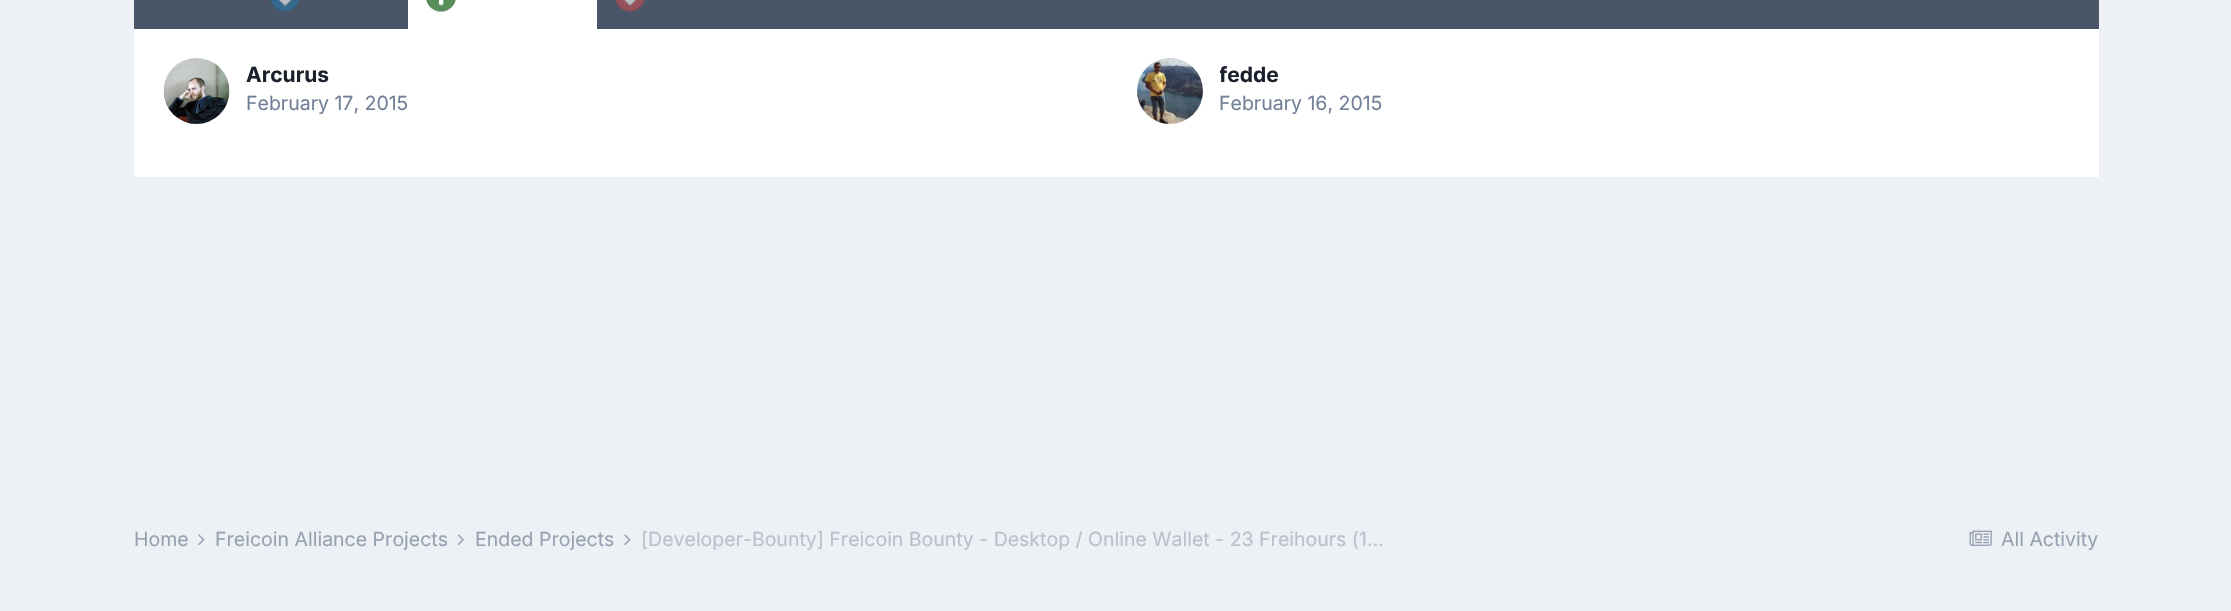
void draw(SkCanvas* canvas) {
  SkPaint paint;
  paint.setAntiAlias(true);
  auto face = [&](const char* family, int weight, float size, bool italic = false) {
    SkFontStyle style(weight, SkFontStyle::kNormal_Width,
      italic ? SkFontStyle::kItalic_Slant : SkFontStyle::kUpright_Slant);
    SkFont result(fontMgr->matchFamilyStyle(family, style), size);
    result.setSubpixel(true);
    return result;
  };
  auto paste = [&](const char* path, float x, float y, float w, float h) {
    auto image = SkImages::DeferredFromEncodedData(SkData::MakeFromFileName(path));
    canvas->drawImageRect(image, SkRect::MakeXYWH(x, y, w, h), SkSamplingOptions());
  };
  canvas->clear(0xffedf0f4);
  paint.setColor(0xff4a5568);
  canvas->drawRect(SkRect::MakeXYWH(134, 0, 1965, 29), paint);
  paste("img/1.png", 270, 0, 30, 12);
  paint.setColor(0xffffffff);
  canvas->drawRect(SkRect::MakeXYWH(408, 0, 189, 29), paint);
  paste("img/2.png", 426, 0, 30, 12);
  paste("img/3.png", 615, 0, 30, 12);
  canvas->drawRect(SkRect::MakeXYWH(134, 29, 1965, 148), paint);
  paste("img/4.png", 163, 58, 67, 66);
  paste("img/5.png", 1137, 58, 66, 66);
  paste("img/6.png", 198, 534, 7, 11);
  paste("img/7.png", 457, 534, 7, 12);
  paste("img/6.png", 624, 534, 7, 11);
  paste("img/8.png", 1969, 530, 23, 16);
  auto f0 = face("Inter", 700, 21);
  paint.setColor(0xff1a202c);
  canvas->drawString("Arcurus", 246, 82, f0, paint);
  auto f1 = face("Inter", 400, 19.5f);
  paint.setColor(0xff718096);
  canvas->drawString("February 17, 2015", 246, 110, f1, paint);
  canvas->save();
  canvas->clipRect(SkRect::MakeXYWH(1220, 59, 849, 31));
  paint.setColor(0xff1a202c);
  canvas->drawString("fedde", 1219, 82, f0, paint);
  canvas->restore();
  paint.setColor(0xff718096);
  canvas->drawString("February 16, 2015", 1219, 110, f1, paint);
  paint.setColor(0xff96a2b2);
  {
    const struct { const char* s; float x, y; } items[] = {
      {"Home", 134, 546},
      {"Freicoin Alliance Projects", 215, 546},
      {"Ended Projects", 475, 546},
    };
    for (auto [s, x, y] : items) {
      canvas->drawString(s, x, y, f1, paint);
    }
  }
  paint.setColor(0xffb9c1cd);
  canvas->drawString("[Developer-Bounty] Freicoin Bounty - Desktop / Online Wallet - 23 Freihours (1…", 641, 546, f1, paint);
  paint.setColor(0xff96a2b2);
  canvas->drawString("All Activity", 2001, 546, f1, paint);
}
